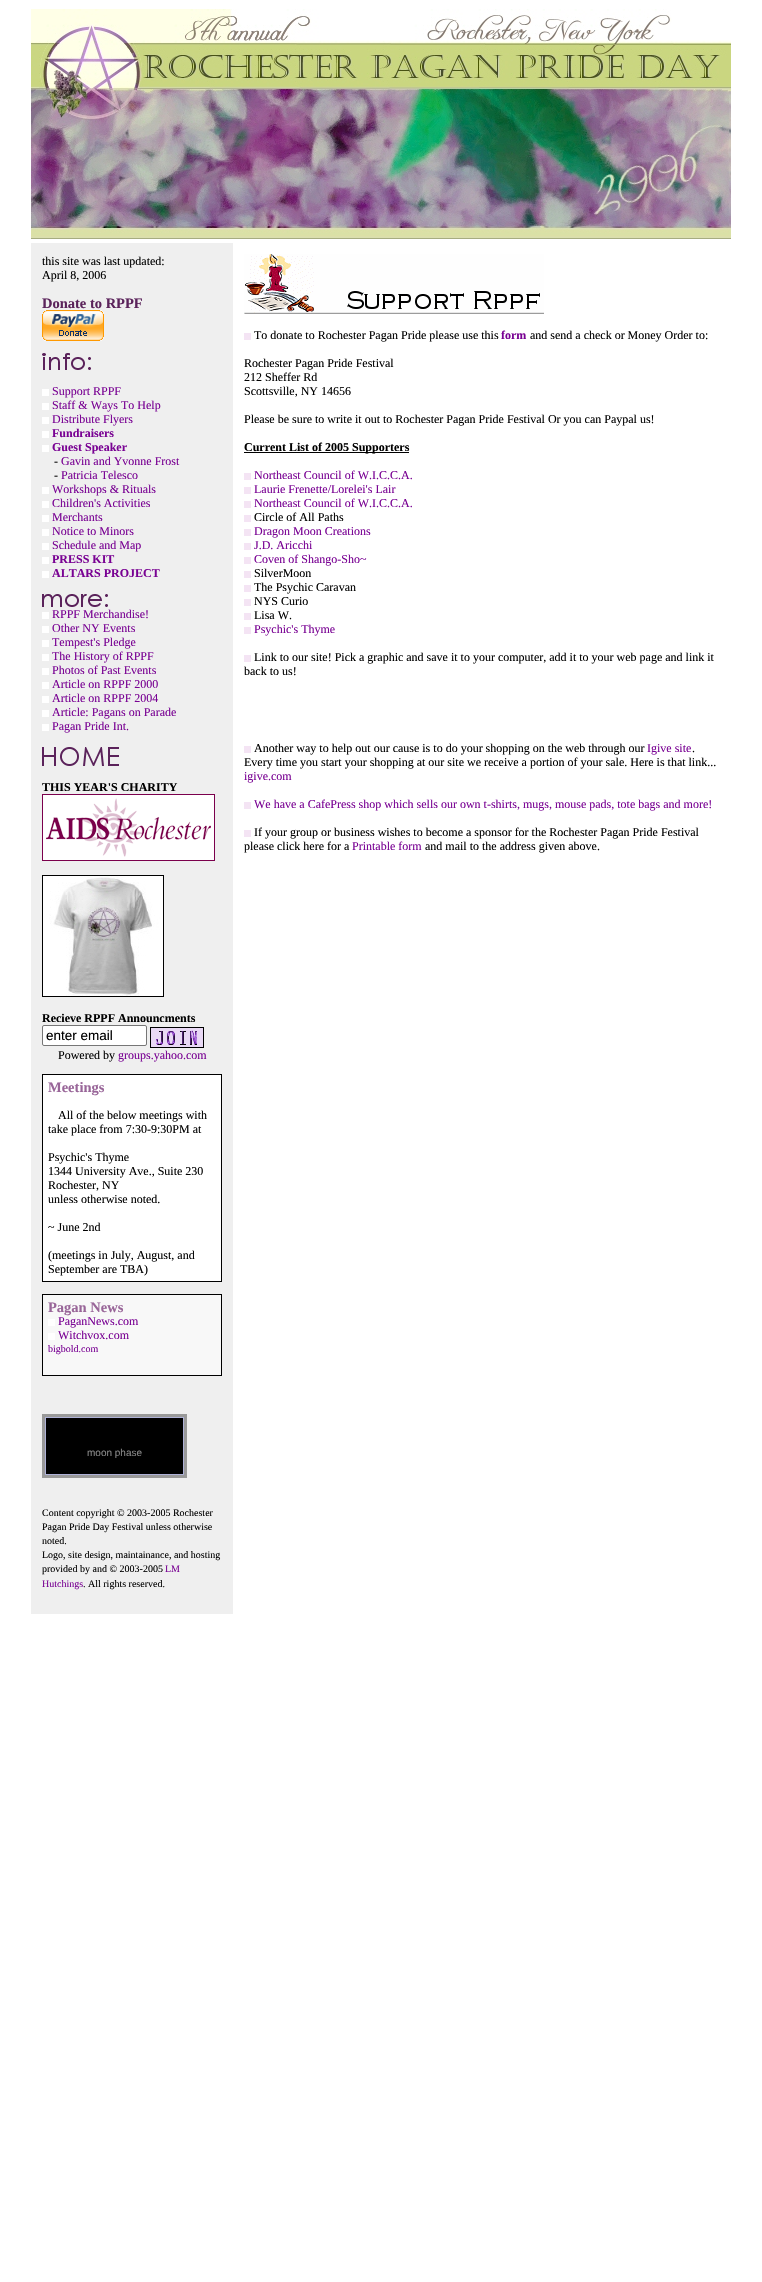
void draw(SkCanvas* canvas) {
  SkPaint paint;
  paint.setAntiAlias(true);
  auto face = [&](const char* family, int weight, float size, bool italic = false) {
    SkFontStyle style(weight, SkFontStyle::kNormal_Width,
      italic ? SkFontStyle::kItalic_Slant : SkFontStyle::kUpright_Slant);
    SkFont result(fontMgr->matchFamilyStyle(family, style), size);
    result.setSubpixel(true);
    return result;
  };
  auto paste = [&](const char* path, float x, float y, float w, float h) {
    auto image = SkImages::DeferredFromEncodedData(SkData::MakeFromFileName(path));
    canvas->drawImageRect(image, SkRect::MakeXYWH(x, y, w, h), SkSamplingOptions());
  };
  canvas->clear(0xffffffff);
  paste("img/1.png", 31, 9, 700, 230);
  paint.setColor(0xffefefef);
  canvas->drawRect(SkRect::MakeXYWH(31, 243, 202, 1371), paint);
  paste("img/2.png", 42, 310, 62, 31);
  paste("img/3.png", 42, 353, 49, 17);
  {
    const struct { float x, y, w, h; SkColor color; } items[] = {
      {42, 389, 7, 7, 0xffffffff},
      {42, 403, 7, 7, 0xffffffff},
      {42, 417, 7, 7, 0xffffffff},
      {42, 431, 7, 7, 0xffffffff},
      {42, 445, 7, 7, 0xffffffff},
      {42, 487, 7, 7, 0xffffffff},
      {42, 501, 7, 7, 0xffffffff},
      {42, 515, 7, 7, 0xffffffff},
      {42, 529, 7, 7, 0xffffffff},
      {42, 543, 7, 7, 0xffffffff},
      {42, 557, 7, 7, 0xffffffff},
      {42, 571, 7, 7, 0xffffffff},
    };
    for (auto [x, y, w, h, color] : items) {
      paint.setColor(color);
      canvas->drawRect(SkRect::MakeXYWH(x, y, w, h), paint);
    }
  }
  paste("img/4.png", 42, 594, 66, 13);
  {
    const struct { float x, y, w, h; SkColor color; } items[] = {
      {42, 612, 7, 7, 0xffffffff},
      {42, 626, 7, 7, 0xffffffff},
      {42, 640, 7, 7, 0xffffffff},
      {42, 654, 7, 7, 0xffffffff},
      {42, 668, 7, 7, 0xffffffff},
      {42, 682, 7, 7, 0xffffffff},
      {42, 696, 7, 7, 0xffffffff},
      {42, 710, 7, 7, 0xffffffff},
      {42, 724, 7, 7, 0xffffffff},
    };
    for (auto [x, y, w, h, color] : items) {
      paint.setColor(color);
      canvas->drawRect(SkRect::MakeXYWH(x, y, w, h), paint);
    }
  }
  paste("img/5.png", 42, 747, 77, 19);
  paste("img/6.png", 42, 794, 173, 67);
  paste("img/7.png", 42, 875, 122, 122);
  canvas->drawRoundRect(SkRect::MakeXYWH(42.5f, 1025.5f, 104, 20), 1.5f, 1.5f, paint);
  paint.setStroke(true);
  paint.setStrokeWidth(1);
  paint.setColor(0xff767676);
  canvas->drawRoundRect(SkRect::MakeXYWH(42.5f, 1025.5f, 104, 20), 1.5f, 1.5f, paint);
  paste("img/8.png", 150, 1027, 54, 21);
  paint.setStroke(false);
  paint.setColor(0xffffffff);
  canvas->drawRect(SkRect::MakeXYWH(42.5f, 1074.5f, 179, 207), paint);
  paint.setStroke(true);
  paint.setColor(0xff000000);
  canvas->drawRect(SkRect::MakeXYWH(42.5f, 1074.5f, 179, 207), paint);
  paint.setStroke(false);
  paint.setColor(0xfff8f8f8);
  canvas->drawRect(SkRect::MakeXYWH(42.5f, 1294.5f, 179, 81), paint);
  paint.setStroke(true);
  paint.setColor(0xff000000);
  canvas->drawRect(SkRect::MakeXYWH(42.5f, 1294.5f, 179, 81), paint);
  paint.setStroke(false);
  {
    const struct { float x, y, w, h; SkColor color; } items[] = {
      {48, 1319, 7, 7, 0xffffffff},
      {48, 1333, 7, 7, 0xffffffff},
      {42, 1414, 145, 64, 0xff999999},
    };
    for (auto [x, y, w, h, color] : items) {
      paint.setColor(color);
      canvas->drawRect(SkRect::MakeXYWH(x, y, w, h), paint);
    }
  }
  paint.setColor(0xff000000);
  canvas->drawRect(SkRect::MakeXYWH(45.5f, 1417.5f, 138, 57), paint);
  paint.setStroke(true);
  paint.setColor(0xffafb2d8);
  canvas->drawRect(SkRect::MakeXYWH(45.5f, 1417.5f, 138, 57), paint);
  paste("img/9.png", 244, 254, 300, 60);
  paint.setStroke(false);
  {
    const struct { float x, y, w, h; SkColor color; } items[] = {
      {244, 333, 7, 7, 0xfff4e4f4},
      {244, 452, 165, 1, 0xff000000},
      {244, 473, 7, 7, 0xfff4e4f4},
      {244, 487, 7, 7, 0xfff4e4f4},
      {244, 501, 7, 7, 0xfff4e4f4},
      {244, 515, 7, 7, 0xfff4e4f4},
      {244, 529, 7, 7, 0xfff4e4f4},
      {244, 543, 7, 7, 0xfff4e4f4},
      {244, 557, 7, 7, 0xfff4e4f4},
      {244, 571, 7, 7, 0xfff4e4f4},
      {244, 585, 7, 7, 0xfff4e4f4},
      {244, 599, 7, 7, 0xfff4e4f4},
      {244, 613, 7, 7, 0xfff4e4f4},
      {244, 627, 7, 7, 0xfff4e4f4},
      {244, 655, 7, 7, 0xfff4e4f4},
      {244, 746, 7, 7, 0xfff4e4f4},
      {244, 802, 7, 7, 0xfff4e4f4},
      {244, 830, 7, 7, 0xfff4e4f4},
    };
    for (auto [x, y, w, h, color] : items) {
      paint.setColor(color);
      canvas->drawRect(SkRect::MakeXYWH(x, y, w, h), paint);
    }
  }
  auto f0 = face("Liberation Serif", 400, 12);
  paint.setColor(0xff000000);
  canvas->drawString("this site was last updated:", 42, 265, f0, paint);
  canvas->drawString("April 8, 2006", 42, 279, f0, paint);
  auto f1 = face("Liberation Serif", 700, 14.5f);
  paint.setColor(0xff5b235b);
  canvas->drawString("Donate to RPPF", 42, 308, f1, paint);
  paint.setColor(0xff790293);
  {
    const struct { const char* s; float x, y; } items[] = {
      {"Support RPPF", 52, 395},
      {"Staff & Ways To Help", 52, 409},
      {"Distribute Flyers", 52, 423},
    };
    for (auto [s, x, y] : items) {
      canvas->drawString(s, x, y, f0, paint);
    }
  }
  auto f2 = face("Liberation Serif", 700, 12);
  canvas->drawString("Fundraisers", 52, 437, f2, paint);
  canvas->drawString("Guest Speaker", 52, 451, f2, paint);
  paint.setColor(0xff000000);
  canvas->drawString("-", 54, 465, f0, paint);
  paint.setColor(0xff790293);
  canvas->drawString("Gavin and Yvonne Frost", 61, 465, f0, paint);
  paint.setColor(0xff000000);
  canvas->drawString("-", 54, 479, f0, paint);
  paint.setColor(0xff790293);
  {
    const struct { const char* s; float x, y; } items[] = {
      {"Patricia Telesco", 61, 479},
      {"Workshops & Rituals", 52, 493},
      {"Children's Activities", 52, 507},
      {"Merchants", 52, 521},
      {"Notice to Minors", 52, 535},
      {"Schedule and Map", 52, 549},
    };
    for (auto [s, x, y] : items) {
      canvas->drawString(s, x, y, f0, paint);
    }
  }
  canvas->drawString("PRESS KIT", 52, 563, f2, paint);
  canvas->drawString("ALTARS PROJECT", 52, 577, f2, paint);
  {
    const struct { const char* s; float x, y; } items[] = {
      {"RPPF Merchandise!", 52, 618},
      {"Other NY Events", 52, 632},
      {"Tempest's Pledge", 52, 646},
      {"The History of RPPF", 52, 660},
      {"Photos of Past Events", 52, 674},
      {"Article on RPPF 2000", 52, 688},
      {"Article on RPPF 2004", 52, 702},
      {"Article: Pagans on Parade", 52, 716},
      {"Pagan Pride Int.", 52, 730},
    };
    for (auto [s, x, y] : items) {
      canvas->drawString(s, x, y, f0, paint);
    }
  }
  paint.setColor(0xff000000);
  canvas->drawString("THIS YEAR'S CHARITY", 42, 791, f2, paint);
  canvas->drawString("Recieve RPPF Announcments", 42, 1022, f2, paint);
  auto f3 = face("Liberation Sans", 400, 13.5f);
  canvas->drawString("enter email", 46, 1040, f3, paint);
  canvas->drawString("Powered by", 58, 1059, f0, paint);
  paint.setColor(0xff790293);
  canvas->drawString("groups.yahoo.com", 118, 1059, f0, paint);
  paint.setColor(0xff996699);
  canvas->drawString("Meetings", 48, 1092, f1, paint);
  paint.setColor(0xff000000);
  {
    const struct { const char* s; float x, y; } items[] = {
      {"All of the below meetings with", 58, 1119},
      {"take place from 7:30-9:30PM at", 48, 1133},
      {"Psychic's Thyme", 48, 1161},
      {"1344 University Ave., Suite 230", 48, 1175},
      {"Rochester, NY", 48, 1189},
      {"unless otherwise noted.", 48, 1203},
      {"~ June 2nd", 48, 1231},
      {"(meetings in July, August, and", 48, 1259},
      {"September are TBA)", 48, 1273},
    };
    for (auto [s, x, y] : items) {
      canvas->drawString(s, x, y, f0, paint);
    }
  }
  paint.setColor(0xff996699);
  canvas->drawString("Pagan News", 48, 1312, f1, paint);
  paint.setColor(0xff790293);
  canvas->drawString("PaganNews.com", 58, 1325, f0, paint);
  canvas->drawString("Witchvox.com", 58, 1339, f0, paint);
  auto f4 = face("Liberation Serif", 400, 10);
  canvas->drawString("bigbold.com", 48, 1352, f4, paint);
  auto f5 = face("Liberation Sans", 400, 10);
  paint.setColor(0xff878787);
  canvas->drawString("moon phase", 87, 1456, f5, paint);
  paint.setColor(0xff000000);
  {
    const struct { const char* s; float x, y; } items[] = {
      {"Content copyright © 2003-2005 Rochester", 42, 1516},
      {"Pagan Pride Day Festival unless otherwise", 42, 1530},
      {"noted.", 42, 1544},
      {"Logo, site design, maintainance, and hosting", 42, 1558},
      {"provided by and © 2003-2005", 42, 1572},
    };
    for (auto [s, x, y] : items) {
      canvas->drawString(s, x, y, f4, paint);
    }
  }
  paint.setColor(0xff790293);
  canvas->drawString("LM", 165, 1572, f4, paint);
  canvas->drawString("Hutchings", 42, 1587, f4, paint);
  paint.setColor(0xff000000);
  canvas->drawString(". All rights reserved.", 83, 1587, f4, paint);
  canvas->drawString("To donate to Rochester Pagan Pride please use this", 254, 339, f0, paint);
  paint.setColor(0xff790293);
  canvas->drawString("form", 501, 339, f2, paint);
  paint.setColor(0xff000000);
  {
    const struct { const char* s; float x, y; } items[] = {
      {"and send a check or Money Order to:", 530, 339},
      {"Rochester Pagan Pride Festival", 244, 367},
      {"212 Sheffer Rd", 244, 381},
      {"Scottsville, NY 14656", 244, 395},
      {"Please be sure to write it out to Rochester Pagan Pride Festival Or you can Paypal us!", 244, 423},
    };
    for (auto [s, x, y] : items) {
      canvas->drawString(s, x, y, f0, paint);
    }
  }
  canvas->drawString("Current List of 2005 Supporters", 244, 451, f2, paint);
  paint.setColor(0xff790293);
  {
    const struct { const char* s; float x, y; } items[] = {
      {"Northeast Council of W.I.C.C.A.", 254, 479},
      {"Laurie Frenette/Lorelei's Lair", 254, 493},
      {"Northeast Council of W.I.C.C.A.", 254, 507},
    };
    for (auto [s, x, y] : items) {
      canvas->drawString(s, x, y, f0, paint);
    }
  }
  paint.setColor(0xff000000);
  canvas->drawString("Circle of All Paths", 254, 521, f0, paint);
  paint.setColor(0xff790293);
  {
    const struct { const char* s; float x, y; } items[] = {
      {"Dragon Moon Creations", 254, 535},
      {"J.D. Aricchi", 254, 549},
      {"Coven of Shango-Sho~", 254, 563},
    };
    for (auto [s, x, y] : items) {
      canvas->drawString(s, x, y, f0, paint);
    }
  }
  paint.setColor(0xff000000);
  {
    const struct { const char* s; float x, y; } items[] = {
      {"SilverMoon", 254, 577},
      {"The Psychic Caravan", 254, 591},
      {"NYS Curio", 254, 605},
      {"Lisa W.", 254, 619},
    };
    for (auto [s, x, y] : items) {
      canvas->drawString(s, x, y, f0, paint);
    }
  }
  paint.setColor(0xff790293);
  canvas->drawString("Psychic's Thyme", 254, 633, f0, paint);
  paint.setColor(0xff000000);
  {
    const struct { const char* s; float x, y; } items[] = {
      {"Link to our site! Pick a graphic and save it to your computer, add it to your web page and link it", 254, 661},
      {"back to us!", 244, 675},
      {"Another way to help out our cause is to do your shopping on the web through our", 254, 752},
    };
    for (auto [s, x, y] : items) {
      canvas->drawString(s, x, y, f0, paint);
    }
  }
  paint.setColor(0xff790293);
  canvas->drawString("Igive site", 647, 752, f0, paint);
  paint.setColor(0xff000000);
  canvas->drawString(".", 692, 752, f0, paint);
  canvas->drawString("Every time you start your shopping at our site we receive a portion of your sale. Here is that link...", 244, 766, f0, paint);
  paint.setColor(0xff790293);
  canvas->drawString("igive.com", 244, 780, f0, paint);
  canvas->drawString("We have a CafePress shop which sells our own t-shirts, mugs, mouse pads, tote bags and more!", 254, 808, f0, paint);
  paint.setColor(0xff000000);
  canvas->drawString("If your group or business wishes to become a sponsor for the Rochester Pagan Pride Festival", 254, 836, f0, paint);
  canvas->drawString("please click here for a", 244, 850, f0, paint);
  paint.setColor(0xff790293);
  canvas->drawString("Printable form", 352, 850, f0, paint);
  paint.setColor(0xff000000);
  canvas->drawString("and mail to the address given above.", 425, 850, f0, paint);
}
